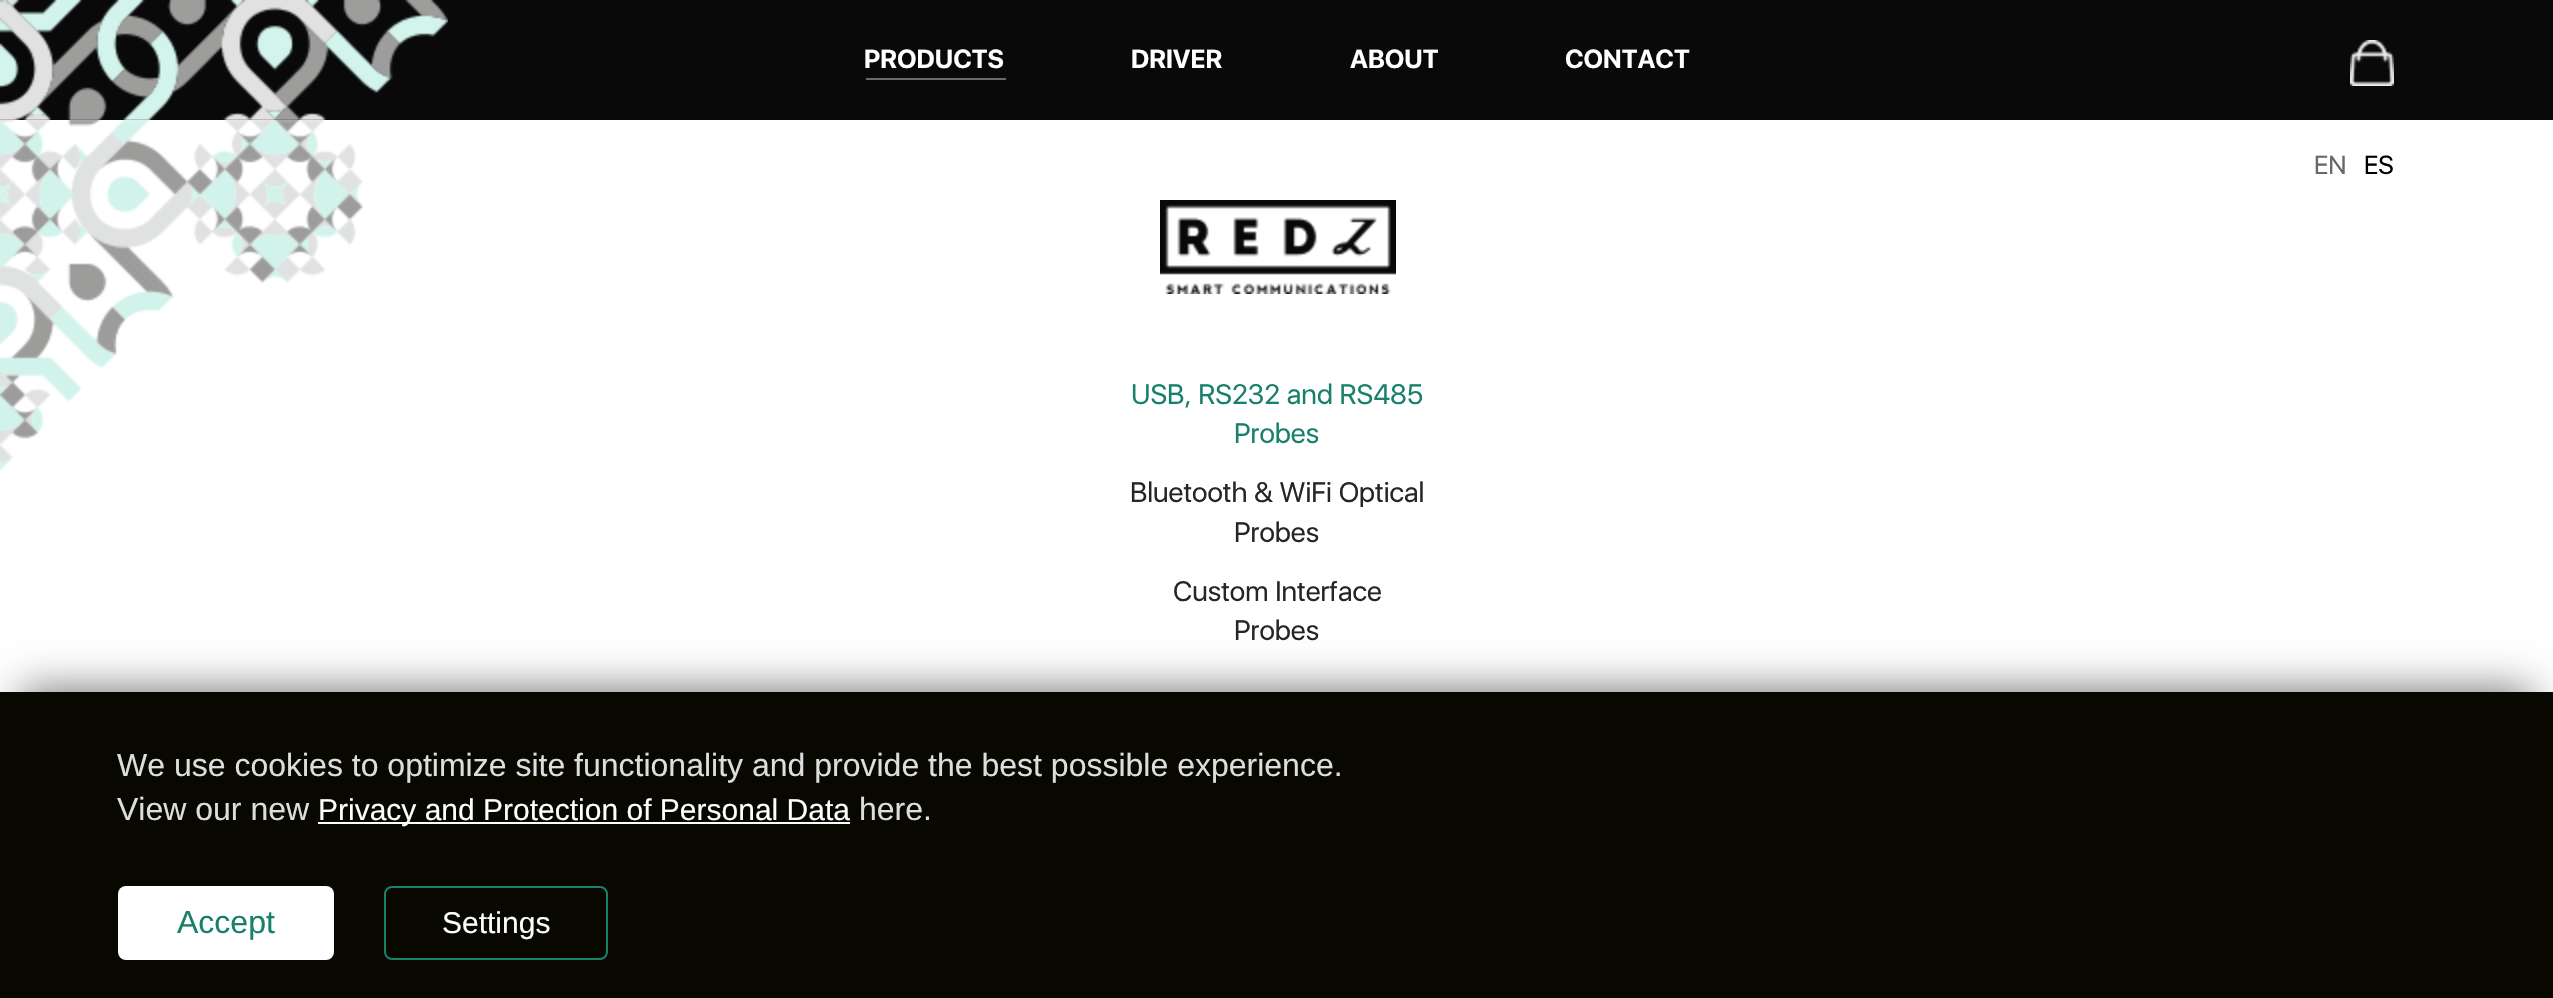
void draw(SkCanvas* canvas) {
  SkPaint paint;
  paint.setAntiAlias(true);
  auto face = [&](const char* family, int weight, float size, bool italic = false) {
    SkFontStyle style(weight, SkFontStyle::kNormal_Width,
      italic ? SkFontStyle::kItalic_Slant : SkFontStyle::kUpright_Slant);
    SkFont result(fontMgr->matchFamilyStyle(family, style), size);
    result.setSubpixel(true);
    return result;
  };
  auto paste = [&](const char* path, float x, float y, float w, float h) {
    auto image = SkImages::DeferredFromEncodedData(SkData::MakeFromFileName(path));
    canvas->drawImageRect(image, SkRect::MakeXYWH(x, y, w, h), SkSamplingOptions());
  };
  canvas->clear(0xffffffff);
  paint.setColor(0xff090909);
  canvas->drawRect(SkRect::MakeXYWH(0, 0, 2553, 120), paint);
  paste("img/2.png", 0, 120, 363, 350);
  paste("img/1.png", 0, 0, 448, 122);
  paint.setColor(0xff6a6a6a);
  canvas->drawRect(SkRect::MakeXYWH(866, 78, 140, 2), paint);
  paste("img/3.png", 2350, 40, 44, 46);
  paste("img/4.png", 1160, 200, 236, 94);
  paint.setColor(0x8c000000);
  paint.setMaskFilter(SkMaskFilter::MakeBlur(kNormal_SkBlurStyle, 20));
  canvas->drawRect(SkRect::MakeXYWH(22, 690, 2510, 262), paint);
  paint.setMaskFilter(nullptr);
  paint.setColor(0xff080801);
  canvas->drawRect(SkRect::MakeXYWH(0, 692, 2553, 306), paint);
  paint.setColor(0xffffffff);
  canvas->drawRect(SkRect::MakeXYWH(318, 822, 532, 2), paint);
  canvas->drawRoundRect(SkRect::MakeXYWH(118, 886, 216, 74), 8, 8, paint);
  paint.setStroke(true);
  paint.setStrokeWidth(2);
  paint.setColor(0xff18806b);
  canvas->drawRoundRect(SkRect::MakeXYWH(385, 887, 222, 72), 7, 7, paint);
  auto f0 = face("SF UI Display", 700, 26);
  paint.setStroke(false);
  paint.setColor(0xffffffff);
  {
    const struct { const char* s; float x, y; } items[] = {
      {"PRODUCTS", 864, 68},
      {"DRIVER", 1131, 68},
      {"ABOUT", 1350, 68},
      {"CONTACT", 1565, 68},
    };
    for (auto [s, x, y] : items) {
      canvas->drawString(s, x, y, f0, paint);
    }
  }
  auto f1 = face("SF UI Display", 400, 26);
  paint.setColor(0xff696969);
  canvas->drawString("EN", 2314, 174, f1, paint);
  paint.setColor(0xff000000);
  canvas->drawString("ES", 2364, 174, f1, paint);
  auto f2 = face("SF UI Display", 400, 28);
  paint.setColor(0xff18806b);
  canvas->drawString("USB, RS232 and RS485", 1131, 404, f2, paint);
  canvas->drawString("Probes", 1234, 443, f2, paint);
  paint.setColor(0xff262626);
  {
    const struct { const char* s; float x, y; } items[] = {
      {"Bluetooth & WiFi Optical", 1130, 502},
      {"Probes", 1234, 542},
      {"Custom Interface", 1173, 601},
      {"Probes", 1234, 640},
    };
    for (auto [s, x, y] : items) {
      canvas->drawString(s, x, y, f2, paint);
    }
  }
  auto f3 = face("Liberation Sans", 400, 32);
  paint.setColor(0xffdddddd);
  canvas->drawString("We use cookies to optimize site functionality and provide the best possible experience.", 117, 776, f3, paint);
  canvas->drawString("View our new", 117, 820, f3, paint);
  auto f4 = face("Liberation Sans", 400, 30);
  paint.setColor(0xffffffff);
  canvas->drawString("Privacy and Protection of Personal Data", 318, 820, f4, paint);
  paint.setColor(0xffdddddd);
  canvas->drawString("here.", 859, 820, f3, paint);
  paint.setColor(0xff18806b);
  canvas->drawString("Accept", 177, 933, f3, paint);
  paint.setColor(0xffffffff);
  canvas->drawString("Settings", 442, 933, f4, paint);
}
